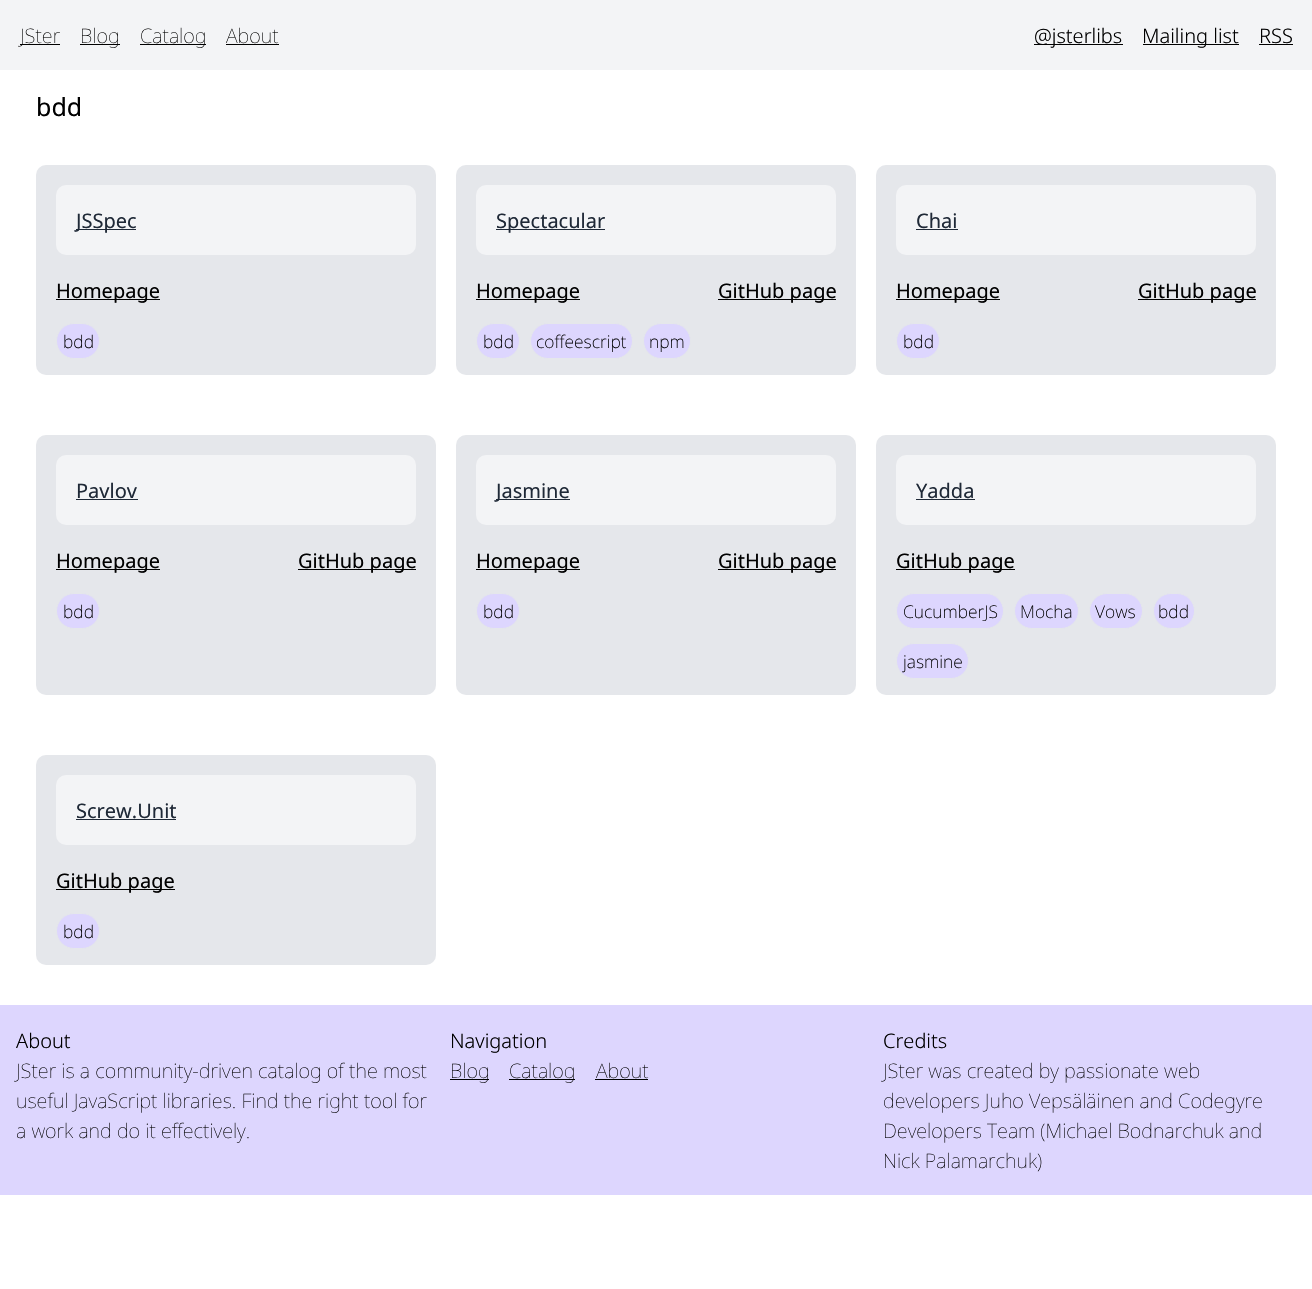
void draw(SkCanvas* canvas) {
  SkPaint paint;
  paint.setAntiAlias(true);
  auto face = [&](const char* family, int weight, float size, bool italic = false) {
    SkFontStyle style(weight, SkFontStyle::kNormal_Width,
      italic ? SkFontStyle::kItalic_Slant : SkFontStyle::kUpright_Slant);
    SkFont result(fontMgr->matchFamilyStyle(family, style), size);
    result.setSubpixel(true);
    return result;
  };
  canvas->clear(0xffffffff);
  {
    const struct { float x, y, w, h; SkColor color; } items[] = {
      {0, 0, 1312, 70, 0xfff3f4f6},
      {20, 44, 40, 1, 0xff000000},
      {80, 44, 40, 1, 0xff000000},
      {140, 44, 66, 1, 0xff000000},
      {226, 44, 53, 1, 0xff000000},
      {1034, 44, 89, 1, 0xff000000},
      {1143, 44, 96, 1, 0xff000000},
      {1259, 44, 34, 1, 0xff000000},
    };
    for (auto [x, y, w, h, color] : items) {
      paint.setColor(color);
      canvas->drawRect(SkRect::MakeXYWH(x, y, w, h), paint);
    }
  }
  paint.setColor(0xffe5e7eb);
  canvas->drawRoundRect(SkRect::MakeXYWH(36, 165, 400, 210), 10, 10, paint);
  paint.setColor(0xfff3f4f6);
  canvas->drawRoundRect(SkRect::MakeXYWH(56, 185, 360, 70), 10, 10, paint);
  paint.setColor(0xff1f2937);
  canvas->drawRect(SkRect::MakeXYWH(76, 229, 60, 1), paint);
  paint.setColor(0xff000000);
  canvas->drawRect(SkRect::MakeXYWH(56, 299, 104, 1), paint);
  paint.setColor(0xffddd6fe);
  canvas->drawRoundRect(SkRect::MakeXYWH(56.5f, 323.5f, 43, 35), 17.5f, 17.5f, paint);
  paint.setStroke(true);
  paint.setStrokeWidth(1);
  paint.setColor(0xffe5e7eb);
  canvas->drawRoundRect(SkRect::MakeXYWH(56.5f, 323.5f, 43, 35), 17.5f, 17.5f, paint);
  paint.setStroke(false);
  canvas->drawRoundRect(SkRect::MakeXYWH(456, 165, 400, 210), 10, 10, paint);
  paint.setColor(0xfff3f4f6);
  canvas->drawRoundRect(SkRect::MakeXYWH(476, 185, 360, 70), 10, 10, paint);
  {
    const struct { float x, y, w, h; SkColor color; } items[] = {
      {496, 229, 109, 1, 0xff1f2937},
      {476, 299, 104, 1, 0xff000000},
      {718, 299, 118, 1, 0xff000000},
    };
    for (auto [x, y, w, h, color] : items) {
      paint.setColor(color);
      canvas->drawRect(SkRect::MakeXYWH(x, y, w, h), paint);
    }
  }
  paint.setColor(0xffddd6fe);
  canvas->drawRoundRect(SkRect::MakeXYWH(476.5f, 323.5f, 43, 35), 17.5f, 17.5f, paint);
  paint.setStroke(true);
  paint.setColor(0xffe5e7eb);
  canvas->drawRoundRect(SkRect::MakeXYWH(476.5f, 323.5f, 43, 35), 17.5f, 17.5f, paint);
  paint.setStroke(false);
  paint.setColor(0xffddd6fe);
  canvas->drawRoundRect(SkRect::MakeXYWH(530.5f, 323.5f, 102, 35), 17.5f, 17.5f, paint);
  paint.setStroke(true);
  paint.setColor(0xffe5e7eb);
  canvas->drawRoundRect(SkRect::MakeXYWH(530.5f, 323.5f, 102, 35), 17.5f, 17.5f, paint);
  paint.setStroke(false);
  paint.setColor(0xffddd6fe);
  canvas->drawRoundRect(SkRect::MakeXYWH(643.5f, 323.5f, 47, 35), 17.5f, 17.5f, paint);
  paint.setStroke(true);
  paint.setColor(0xffe5e7eb);
  canvas->drawRoundRect(SkRect::MakeXYWH(643.5f, 323.5f, 47, 35), 17.5f, 17.5f, paint);
  paint.setStroke(false);
  canvas->drawRoundRect(SkRect::MakeXYWH(876, 165, 400, 210), 10, 10, paint);
  paint.setColor(0xfff3f4f6);
  canvas->drawRoundRect(SkRect::MakeXYWH(896, 185, 360, 70), 10, 10, paint);
  {
    const struct { float x, y, w, h; SkColor color; } items[] = {
      {916, 229, 42, 1, 0xff1f2937},
      {896, 299, 104, 1, 0xff000000},
      {1138, 299, 118, 1, 0xff000000},
    };
    for (auto [x, y, w, h, color] : items) {
      paint.setColor(color);
      canvas->drawRect(SkRect::MakeXYWH(x, y, w, h), paint);
    }
  }
  paint.setColor(0xffddd6fe);
  canvas->drawRoundRect(SkRect::MakeXYWH(896.5f, 323.5f, 43, 35), 17.5f, 17.5f, paint);
  paint.setStroke(true);
  paint.setColor(0xffe5e7eb);
  canvas->drawRoundRect(SkRect::MakeXYWH(896.5f, 323.5f, 43, 35), 17.5f, 17.5f, paint);
  paint.setStroke(false);
  canvas->drawRoundRect(SkRect::MakeXYWH(36, 435, 400, 260), 10, 10, paint);
  paint.setColor(0xfff3f4f6);
  canvas->drawRoundRect(SkRect::MakeXYWH(56, 455, 360, 70), 10, 10, paint);
  {
    const struct { float x, y, w, h; SkColor color; } items[] = {
      {76, 499, 62, 1, 0xff1f2937},
      {56, 569, 104, 1, 0xff000000},
      {298, 569, 118, 1, 0xff000000},
    };
    for (auto [x, y, w, h, color] : items) {
      paint.setColor(color);
      canvas->drawRect(SkRect::MakeXYWH(x, y, w, h), paint);
    }
  }
  paint.setColor(0xffddd6fe);
  canvas->drawRoundRect(SkRect::MakeXYWH(56.5f, 593.5f, 43, 35), 17.5f, 17.5f, paint);
  paint.setStroke(true);
  paint.setColor(0xffe5e7eb);
  canvas->drawRoundRect(SkRect::MakeXYWH(56.5f, 593.5f, 43, 35), 17.5f, 17.5f, paint);
  paint.setStroke(false);
  canvas->drawRoundRect(SkRect::MakeXYWH(456, 435, 400, 260), 10, 10, paint);
  paint.setColor(0xfff3f4f6);
  canvas->drawRoundRect(SkRect::MakeXYWH(476, 455, 360, 70), 10, 10, paint);
  {
    const struct { float x, y, w, h; SkColor color; } items[] = {
      {496, 499, 74, 1, 0xff1f2937},
      {476, 569, 104, 1, 0xff000000},
      {718, 569, 118, 1, 0xff000000},
    };
    for (auto [x, y, w, h, color] : items) {
      paint.setColor(color);
      canvas->drawRect(SkRect::MakeXYWH(x, y, w, h), paint);
    }
  }
  paint.setColor(0xffddd6fe);
  canvas->drawRoundRect(SkRect::MakeXYWH(476.5f, 593.5f, 43, 35), 17.5f, 17.5f, paint);
  paint.setStroke(true);
  paint.setColor(0xffe5e7eb);
  canvas->drawRoundRect(SkRect::MakeXYWH(476.5f, 593.5f, 43, 35), 17.5f, 17.5f, paint);
  paint.setStroke(false);
  canvas->drawRoundRect(SkRect::MakeXYWH(876, 435, 400, 260), 10, 10, paint);
  paint.setColor(0xfff3f4f6);
  canvas->drawRoundRect(SkRect::MakeXYWH(896, 455, 360, 70), 10, 10, paint);
  paint.setColor(0xff1f2937);
  canvas->drawRect(SkRect::MakeXYWH(916, 499, 59, 1), paint);
  paint.setColor(0xff000000);
  canvas->drawRect(SkRect::MakeXYWH(896, 569, 119, 1), paint);
  paint.setColor(0xffddd6fe);
  canvas->drawRoundRect(SkRect::MakeXYWH(896.5f, 593.5f, 107, 35), 17.5f, 17.5f, paint);
  paint.setStroke(true);
  paint.setColor(0xffe5e7eb);
  canvas->drawRoundRect(SkRect::MakeXYWH(896.5f, 593.5f, 107, 35), 17.5f, 17.5f, paint);
  paint.setStroke(false);
  paint.setColor(0xffddd6fe);
  canvas->drawRoundRect(SkRect::MakeXYWH(1014.5f, 593.5f, 64, 35), 17.5f, 17.5f, paint);
  paint.setStroke(true);
  paint.setColor(0xffe5e7eb);
  canvas->drawRoundRect(SkRect::MakeXYWH(1014.5f, 593.5f, 64, 35), 17.5f, 17.5f, paint);
  paint.setStroke(false);
  paint.setColor(0xffddd6fe);
  canvas->drawRoundRect(SkRect::MakeXYWH(1089.5f, 593.5f, 53, 35), 17.5f, 17.5f, paint);
  paint.setStroke(true);
  paint.setColor(0xffe5e7eb);
  canvas->drawRoundRect(SkRect::MakeXYWH(1089.5f, 593.5f, 53, 35), 17.5f, 17.5f, paint);
  paint.setStroke(false);
  paint.setColor(0xffddd6fe);
  canvas->drawRoundRect(SkRect::MakeXYWH(1153.5f, 593.5f, 41, 35), 17.5f, 17.5f, paint);
  paint.setStroke(true);
  paint.setColor(0xffe5e7eb);
  canvas->drawRoundRect(SkRect::MakeXYWH(1153.5f, 593.5f, 41, 35), 17.5f, 17.5f, paint);
  paint.setStroke(false);
  paint.setColor(0xffddd6fe);
  canvas->drawRoundRect(SkRect::MakeXYWH(896.5f, 643.5f, 72, 35), 17.5f, 17.5f, paint);
  paint.setStroke(true);
  paint.setColor(0xffe5e7eb);
  canvas->drawRoundRect(SkRect::MakeXYWH(896.5f, 643.5f, 72, 35), 17.5f, 17.5f, paint);
  paint.setStroke(false);
  canvas->drawRoundRect(SkRect::MakeXYWH(36, 755, 400, 210), 10, 10, paint);
  paint.setColor(0xfff3f4f6);
  canvas->drawRoundRect(SkRect::MakeXYWH(56, 775, 360, 70), 10, 10, paint);
  paint.setColor(0xff1f2937);
  canvas->drawRect(SkRect::MakeXYWH(76, 819, 100, 1), paint);
  paint.setColor(0xff000000);
  canvas->drawRect(SkRect::MakeXYWH(56, 889, 119, 1), paint);
  paint.setColor(0xffddd6fe);
  canvas->drawRoundRect(SkRect::MakeXYWH(56.5f, 913.5f, 43, 35), 17.5f, 17.5f, paint);
  paint.setStroke(true);
  paint.setColor(0xffe5e7eb);
  canvas->drawRoundRect(SkRect::MakeXYWH(56.5f, 913.5f, 43, 35), 17.5f, 17.5f, paint);
  paint.setStroke(false);
  {
    const struct { float x, y, w, h; SkColor color; } items[] = {
      {0, 1005, 1312, 190, 0xffddd6fe},
      {450, 1079, 39, 1, 0xff000000},
      {509, 1079, 66, 1, 0xff000000},
      {595, 1079, 53, 1, 0xff000000},
    };
    for (auto [x, y, w, h, color] : items) {
      paint.setColor(color);
      canvas->drawRect(SkRect::MakeXYWH(x, y, w, h), paint);
    }
  }
  auto f0 = face("Noto Sans", 100, 20);
  {
    const struct { const char* s; float x, y; } items[] = {
      {"JSter", 20, 43},
      {"Blog", 80, 43},
      {"Catalog", 140, 43},
      {"About", 226, 43},
    };
    for (auto [s, x, y] : items) {
      canvas->drawString(s, x, y, f0, paint);
    }
  }
  auto f1 = face("Noto Sans", 300, 20);
  {
    const struct { const char* s; float x, y; } items[] = {
      {"@jsterlibs", 1034, 43},
      {"Mailing list", 1142, 43},
      {"RSS", 1259, 43},
    };
    for (auto [s, x, y] : items) {
      canvas->drawString(s, x, y, f1, paint);
    }
  }
  auto f2 = face("Noto Sans", 400, 25);
  canvas->drawString("bdd", 36, 116, f2, paint);
  auto f3 = face("Noto Sans", 400, 20);
  paint.setColor(0xff1f2937);
  canvas->drawString("JSSpec", 76, 228, f3, paint);
  paint.setColor(0xff000000);
  canvas->drawString("Homepage", 56, 298, f3, paint);
  auto f4 = face("Noto Sans", 200, 17.5f);
  canvas->drawString("bdd", 63, 348, f4, paint);
  paint.setColor(0xff1f2937);
  canvas->drawString("Spectacular", 496, 228, f3, paint);
  paint.setColor(0xff000000);
  canvas->drawString("Homepage", 476, 298, f3, paint);
  canvas->drawString("GitHub page", 718, 298, f3, paint);
  {
    const struct { const char* s; float x, y; } items[] = {
      {"bdd", 483, 348},
      {"coffeescript", 536, 348},
      {"npm", 649, 348},
    };
    for (auto [s, x, y] : items) {
      canvas->drawString(s, x, y, f4, paint);
    }
  }
  paint.setColor(0xff1f2937);
  canvas->drawString("Chai", 916, 228, f3, paint);
  paint.setColor(0xff000000);
  canvas->drawString("Homepage", 896, 298, f3, paint);
  canvas->drawString("GitHub page", 1138, 298, f3, paint);
  canvas->drawString("bdd", 903, 348, f4, paint);
  paint.setColor(0xff1f2937);
  canvas->drawString("Pavlov", 76, 498, f3, paint);
  paint.setColor(0xff000000);
  canvas->drawString("Homepage", 56, 568, f3, paint);
  canvas->drawString("GitHub page", 298, 568, f3, paint);
  canvas->drawString("bdd", 63, 618, f4, paint);
  paint.setColor(0xff1f2937);
  canvas->drawString("Jasmine", 496, 498, f3, paint);
  paint.setColor(0xff000000);
  canvas->drawString("Homepage", 476, 568, f3, paint);
  canvas->drawString("GitHub page", 718, 568, f3, paint);
  canvas->drawString("bdd", 483, 618, f4, paint);
  paint.setColor(0xff1f2937);
  canvas->drawString("Yadda", 916, 498, f3, paint);
  paint.setColor(0xff000000);
  canvas->drawString("GitHub page", 896, 568, f3, paint);
  {
    const struct { const char* s; float x, y; } items[] = {
      {"CucumberJS", 903, 618},
      {"Mocha", 1020, 618},
      {"Vows", 1095, 618},
      {"bdd", 1158, 618},
      {"jasmine", 903, 668},
    };
    for (auto [s, x, y] : items) {
      canvas->drawString(s, x, y, f4, paint);
    }
  }
  paint.setColor(0xff1f2937);
  canvas->drawString("Screw.Unit", 76, 818, f3, paint);
  paint.setColor(0xff000000);
  canvas->drawString("GitHub page", 56, 888, f3, paint);
  canvas->drawString("bdd", 63, 938, f4, paint);
  canvas->drawString("About", 16, 1048, f1, paint);
  {
    const struct { const char* s; float x, y; } items[] = {
      {"JSter is a community-driven catalog of the most", 16, 1078},
      {"useful JavaScript libraries. Find the right tool for", 16, 1108},
      {"a work and do it effectively.", 16, 1138},
    };
    for (auto [s, x, y] : items) {
      canvas->drawString(s, x, y, f0, paint);
    }
  }
  canvas->drawString("Navigation", 450, 1048, f1, paint);
  {
    const struct { const char* s; float x, y; } items[] = {
      {"Blog", 450, 1078},
      {"Catalog", 509, 1078},
      {"About", 596, 1078},
    };
    for (auto [s, x, y] : items) {
      canvas->drawString(s, x, y, f0, paint);
    }
  }
  canvas->drawString("Credits", 883, 1048, f1, paint);
  {
    const struct { const char* s; float x, y; } items[] = {
      {"JSter was created by passionate web", 883, 1078},
      {"developers Juho Vepsäläinen and Codegyre", 883, 1108},
      {"Developers Team (Michael Bodnarchuk and", 883, 1138},
      {"Nick Palamarchuk)", 883, 1168},
    };
    for (auto [s, x, y] : items) {
      canvas->drawString(s, x, y, f0, paint);
    }
  }
}
